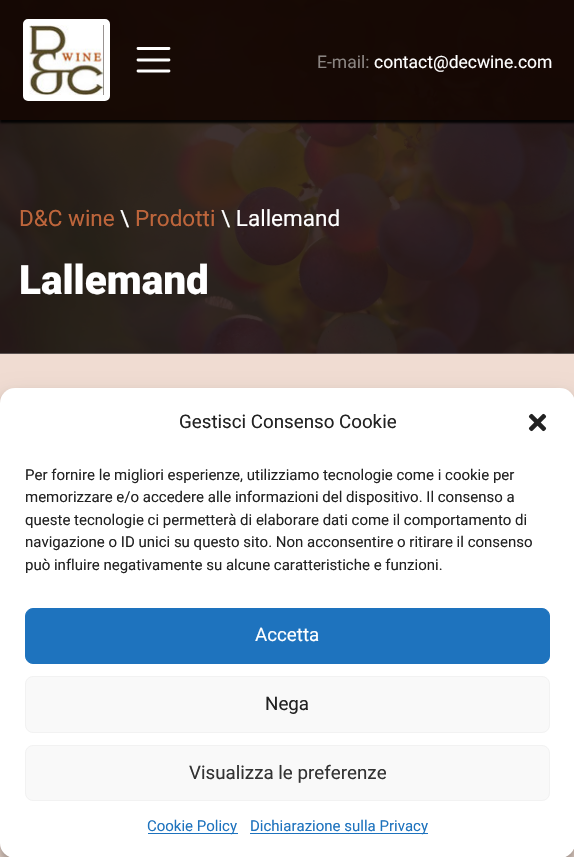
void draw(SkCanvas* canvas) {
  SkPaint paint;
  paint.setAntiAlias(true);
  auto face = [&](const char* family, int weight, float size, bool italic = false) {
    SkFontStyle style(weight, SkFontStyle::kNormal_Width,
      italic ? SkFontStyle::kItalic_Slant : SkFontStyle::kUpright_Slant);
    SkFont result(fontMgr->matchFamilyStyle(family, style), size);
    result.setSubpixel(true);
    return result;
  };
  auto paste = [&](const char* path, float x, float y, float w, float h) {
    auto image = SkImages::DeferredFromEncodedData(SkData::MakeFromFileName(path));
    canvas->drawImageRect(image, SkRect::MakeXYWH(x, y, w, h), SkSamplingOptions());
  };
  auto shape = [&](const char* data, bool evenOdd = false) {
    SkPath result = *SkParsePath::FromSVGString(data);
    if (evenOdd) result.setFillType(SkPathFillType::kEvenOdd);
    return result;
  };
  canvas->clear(0xffffffff);
  paste("img/2.png", 0, 0, 574, 354);
  canvas->save();
  canvas->clipRect(SkRect::MakeXYWH(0, 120, 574, 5));
  paint.setColor(0xe6000000);
  paint.setMaskFilter(SkMaskFilter::MakeBlur(kNormal_SkBlurStyle, 1));
  canvas->drawRect(SkRect::MakeXYWH(0, 3, 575, 120), paint);
  paint.setMaskFilter(nullptr);
  canvas->restore();
  paint.setColor(0xe6130601);
  canvas->drawRect(SkRect::MakeXYWH(0, 0, 574, 120), paint);
  paint.setStroke(true);
  paint.setStrokeWidth(6);
  paint.setColor(0xffffffff);
  canvas->drawRoundRect(SkRect::MakeXYWH(26, 22, 81, 76), 2, 2, paint);
  paste("img/1.png", 29, 25, 75, 70);
  paint.setStrokeWidth(2.8f);
  paint.setStrokeCap(SkPaint::kRound_Cap);
  canvas->drawPath(shape("M138 48.5H169M138 60H169M138 71H169"), paint);
  paint.setStroke(false);
  paint.setColor(0xfff0dcd2);
  canvas->drawRect(SkRect::MakeXYWH(0, 354, 574, 503), paint);
  paint.setColor(0x3b000000);
  paint.setMaskFilter(SkMaskFilter::MakeBlur(kNormal_SkBlurStyle, 4));
  canvas->drawRoundRect(SkRect::MakeXYWH(0, 395, 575, 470), 15, 15, paint);
  paint.setMaskFilter(nullptr);
  paint.setColor(0x30000000);
  paint.setMaskFilter(SkMaskFilter::MakeBlur(kNormal_SkBlurStyle, 12.5f));
  canvas->drawRoundRect(SkRect::MakeXYWH(0, 400, 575, 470), 15, 15, paint);
  paint.setMaskFilter(nullptr);
  paint.setColor(0xffffffff);
  canvas->drawRoundRect(SkRect::MakeXYWH(0, 388, 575, 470), 15, 15, paint);
  paste("img/3.png", 528, 413, 19, 19);
  paint.setColor(0xff1e73be);
  canvas->drawRoundRect(SkRect::MakeXYWH(25.5f, 608.5f, 524, 55), 7.5f, 7.5f, paint);
  paint.setStroke(true);
  paint.setStrokeWidth(1);
  paint.setStrokeCap(SkPaint::kButt_Cap);
  canvas->drawRoundRect(SkRect::MakeXYWH(25.5f, 608.5f, 524, 55), 7.5f, 7.5f, paint);
  paint.setStroke(false);
  paint.setColor(0xfff9f9f9);
  canvas->drawRoundRect(SkRect::MakeXYWH(25.5f, 676.5f, 524, 56), 7.5f, 7.5f, paint);
  paint.setStroke(true);
  paint.setColor(0xfff2f2f2);
  canvas->drawRoundRect(SkRect::MakeXYWH(25.5f, 676.5f, 524, 56), 7.5f, 7.5f, paint);
  paint.setStroke(false);
  paint.setColor(0xfff9f9f9);
  canvas->drawRoundRect(SkRect::MakeXYWH(25.5f, 745.5f, 524, 55), 7.5f, 7.5f, paint);
  paint.setStroke(true);
  paint.setColor(0xfff2f2f2);
  canvas->drawRoundRect(SkRect::MakeXYWH(25.5f, 745.5f, 524, 55), 7.5f, 7.5f, paint);
  paint.setStroke(false);
  paint.setColor(0xff1e73be);
  canvas->drawRect(SkRect::MakeXYWH(148, 833, 90, 1), paint);
  canvas->drawRect(SkRect::MakeXYWH(250, 833, 178, 1), paint);
  auto f0 = face("Roboto", 400, 17.5f);
  paint.setColor(0xff8a8481);
  canvas->drawString("E-mail:", 317, 68, f0, paint);
  paint.setColor(0xffffffff);
  canvas->drawString("contact@decwine.com", 374, 68, f0, paint);
  auto f1 = face("Roboto", 400, 22.5f);
  paint.setColor(0xffbe653b);
  canvas->drawString("D&C wine", 19, 226, f1, paint);
  paint.setColor(0xffffffff);
  canvas->drawString("\\", 120, 226, f1, paint);
  paint.setColor(0xffbe653b);
  canvas->drawString("Prodotti", 135, 226, f1, paint);
  paint.setColor(0xffffffff);
  canvas->drawString("\\ Lallemand", 221, 226, f1, paint);
  auto f2 = face("Roboto", 900, 40.5f);
  canvas->drawString("Lallemand", 19, 294, f2, paint);
  auto f3 = face("Roboto", 400, 18.75f);
  paint.setColor(0xff222222);
  canvas->drawString("Gestisci Consenso Cookie", 179, 428, f3, paint);
  auto f4 = face("Roboto", 400, 15);
  {
    const struct { const char* s; float x, y; } items[] = {
      {"Per fornire le migliori esperienze, utilizziamo tecnologie come i cookie per", 25, 480},
      {"memorizzare e/o accedere alle informazioni del dispositivo. Il consenso a", 25, 502},
      {"queste tecnologie ci permetterà di elaborare dati come il comportamento di", 25, 525},
      {"navigazione o ID unici su questo sito. Non acconsentire o ritirare il consenso", 25, 547},
      {"può influire negativamente su alcune caratteristiche e funzioni.", 25, 570},
    };
    for (auto [s, x, y] : items) {
      canvas->drawString(s, x, y, f4, paint);
    }
  }
  paint.setColor(0xffffffff);
  canvas->drawString("Accetta", 255, 641, f3, paint);
  paint.setColor(0xff222222);
  canvas->drawString("Nega", 265, 710, f3, paint);
  paint.setColor(0xff333333);
  canvas->drawString("Visualizza le preferenze", 189, 779, f3, paint);
  paint.setColor(0xff1e73be);
  canvas->drawString("Cookie Policy", 147, 831, f4, paint);
  canvas->drawString("Dichiarazione sulla Privacy", 250, 831, f4, paint);
}
